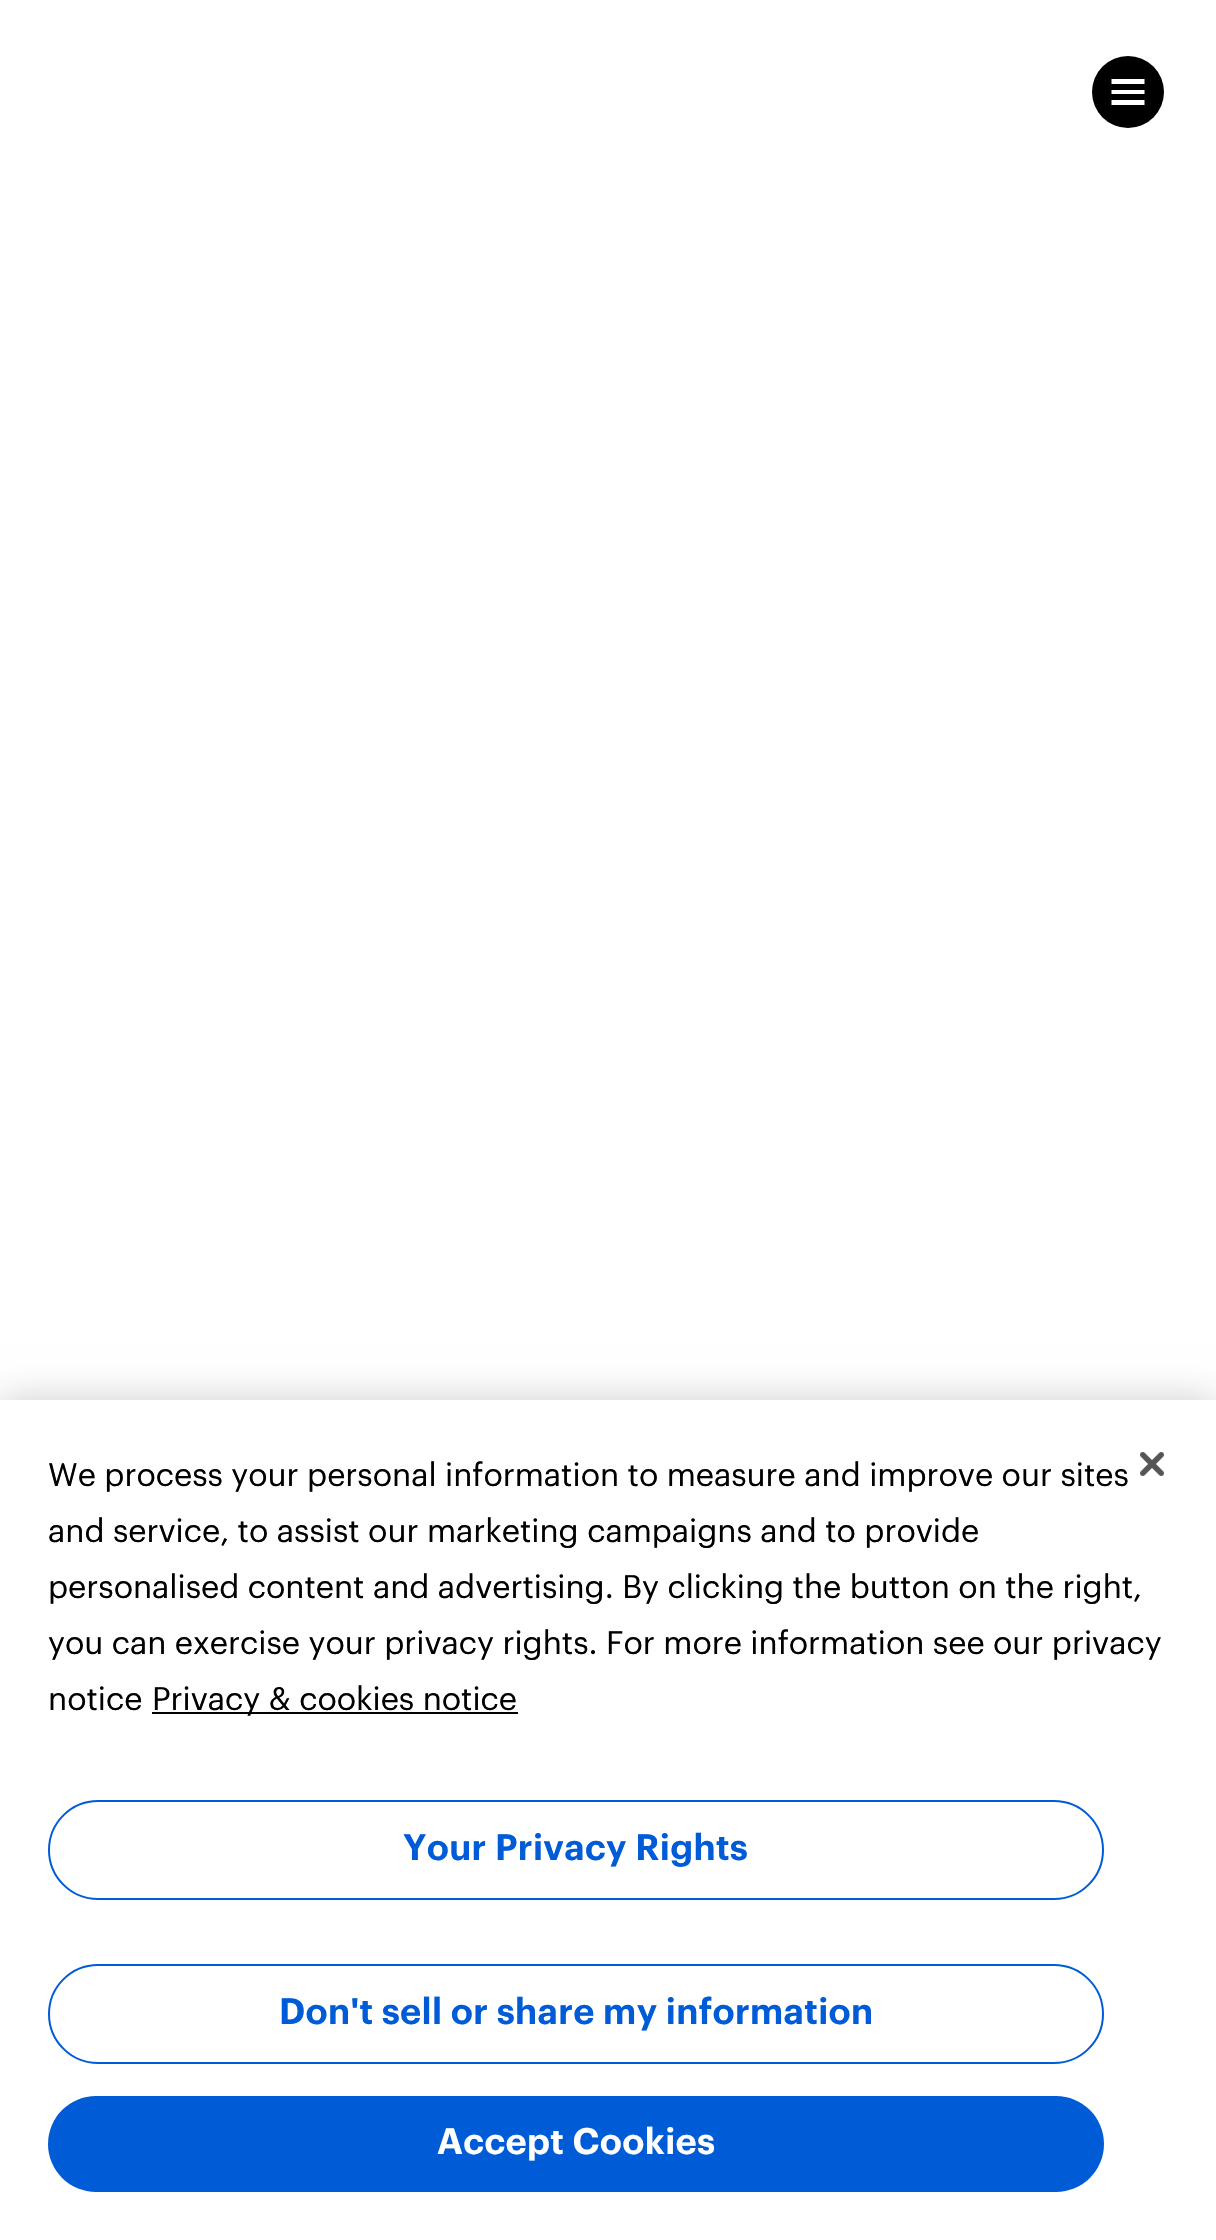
void draw(SkCanvas* canvas) {
  SkPaint paint;
  paint.setAntiAlias(true);
  auto face = [&](const char* family, int weight, float size, bool italic = false) {
    SkFontStyle style(weight, SkFontStyle::kNormal_Width,
      italic ? SkFontStyle::kItalic_Slant : SkFontStyle::kUpright_Slant);
    SkFont result(fontMgr->matchFamilyStyle(family, style), size);
    result.setSubpixel(true);
    return result;
  };
  auto writeSpaced = [&](const char* s, float x, float y, const SkFont& font, const SkPaint& ink, float letter, float word) {
    std::vector<SkGlyphID> glyphs(font.countText(s, strlen(s), SkTextEncoding::kUTF8));
    std::vector<float> xs(glyphs.size());
    font.textToGlyphs(s, strlen(s), SkTextEncoding::kUTF8, glyphs);
    font.getXPos(glyphs, xs, x);
    float extra = 0;
    for (size_t i = 0; i < glyphs.size(); i++) {
      xs[i] += extra;
      extra += letter + word * (glyphs[i] == font.unicharToGlyph(' '));
    }
    canvas->drawTextBlob(SkTextBlob::MakeFromPosHGlyphs(glyphs, xs, y, font), 0, 0, ink);
  };
  auto paste = [&](const char* path, float x, float y, float w, float h) {
    auto image = SkImages::DeferredFromEncodedData(SkData::MakeFromFileName(path));
    canvas->drawImageRect(image, SkRect::MakeXYWH(x, y, w, h), SkSamplingOptions());
  };
  auto shape = [&](const char* data, bool evenOdd = false) {
    SkPath result = *SkParsePath::FromSVGString(data);
    if (evenOdd) result.setFillType(SkPathFillType::kEvenOdd);
    return result;
  };
  canvas->clear(0xffffffff);
  paint.setColor(0xff000000);
  canvas->drawCircle(1128, 92, 36, paint);
  paint.setColor(0xffffffff);
  canvas->drawPath(shape("M1144.5 100V105H1111.5V100ZM1144.5 90V94H1111.5V90ZM1144.5 79V84H1111.5V79Z"), paint);
  paint.setColor(0x33000000);
  paint.setMaskFilter(SkMaskFilter::MakeBlur(kNormal_SkBlurStyle, 18));
  canvas->drawRect(SkRect::MakeXYWH(0, 1400, 1216, 840), paint);
  paint.setMaskFilter(nullptr);
  paint.setColor(0xffffffff);
  canvas->drawRect(SkRect::MakeXYWH(0, 1400, 1216, 840), paint);
  paste("img/1.png", 1140, 1452, 24, 24);
  paint.setColor(0xff000000);
  canvas->drawRect(SkRect::MakeXYWH(152, 1712, 366, 2), paint);
  paint.setStroke(true);
  paint.setStrokeWidth(2);
  paint.setColor(0xff005bd7);
  canvas->drawRoundRect(SkRect::MakeXYWH(49, 1801, 1054, 98), 49, 49, paint);
  canvas->drawRoundRect(SkRect::MakeXYWH(49, 1965, 1054, 98), 49, 49, paint);
  paint.setStroke(false);
  canvas->drawRoundRect(SkRect::MakeXYWH(48, 2096, 1056, 96), 48, 48, paint);
  auto f0 = face("Graphik", 400, 32);
  paint.setColor(0xff000000);
  {
    const struct { const char* s; float x, y; } items[] = {
      {"We process your personal information to measure and improve our sites", 48, 1486},
      {"and service, to assist our marketing campaigns and to provide", 48, 1542},
      {"personalised content and advertising. By clicking the button on the right,", 48, 1598},
      {"you can exercise your privacy rights. For more information see our privacy", 48, 1654},
      {"notice", 48, 1710},
      {"Privacy & cookies notice", 152, 1710},
    };
    for (auto [s, x, y] : items) {
      canvas->drawString(s, x, y, f0, paint);
    }
  }
  auto f1 = face("Graphik", 600, 36);
  paint.setColor(0xff005bd7);
  writeSpaced("Your Privacy Rights", 403, 1860, f1, paint, 0.35f, 0);
  writeSpaced("Don't sell or share my information", 279, 2024, f1, paint, 0.35f, 0);
  paint.setColor(0xffffffff);
  writeSpaced("Accept Cookies", 437, 2154, f1, paint, 0.35f, 0);
}
